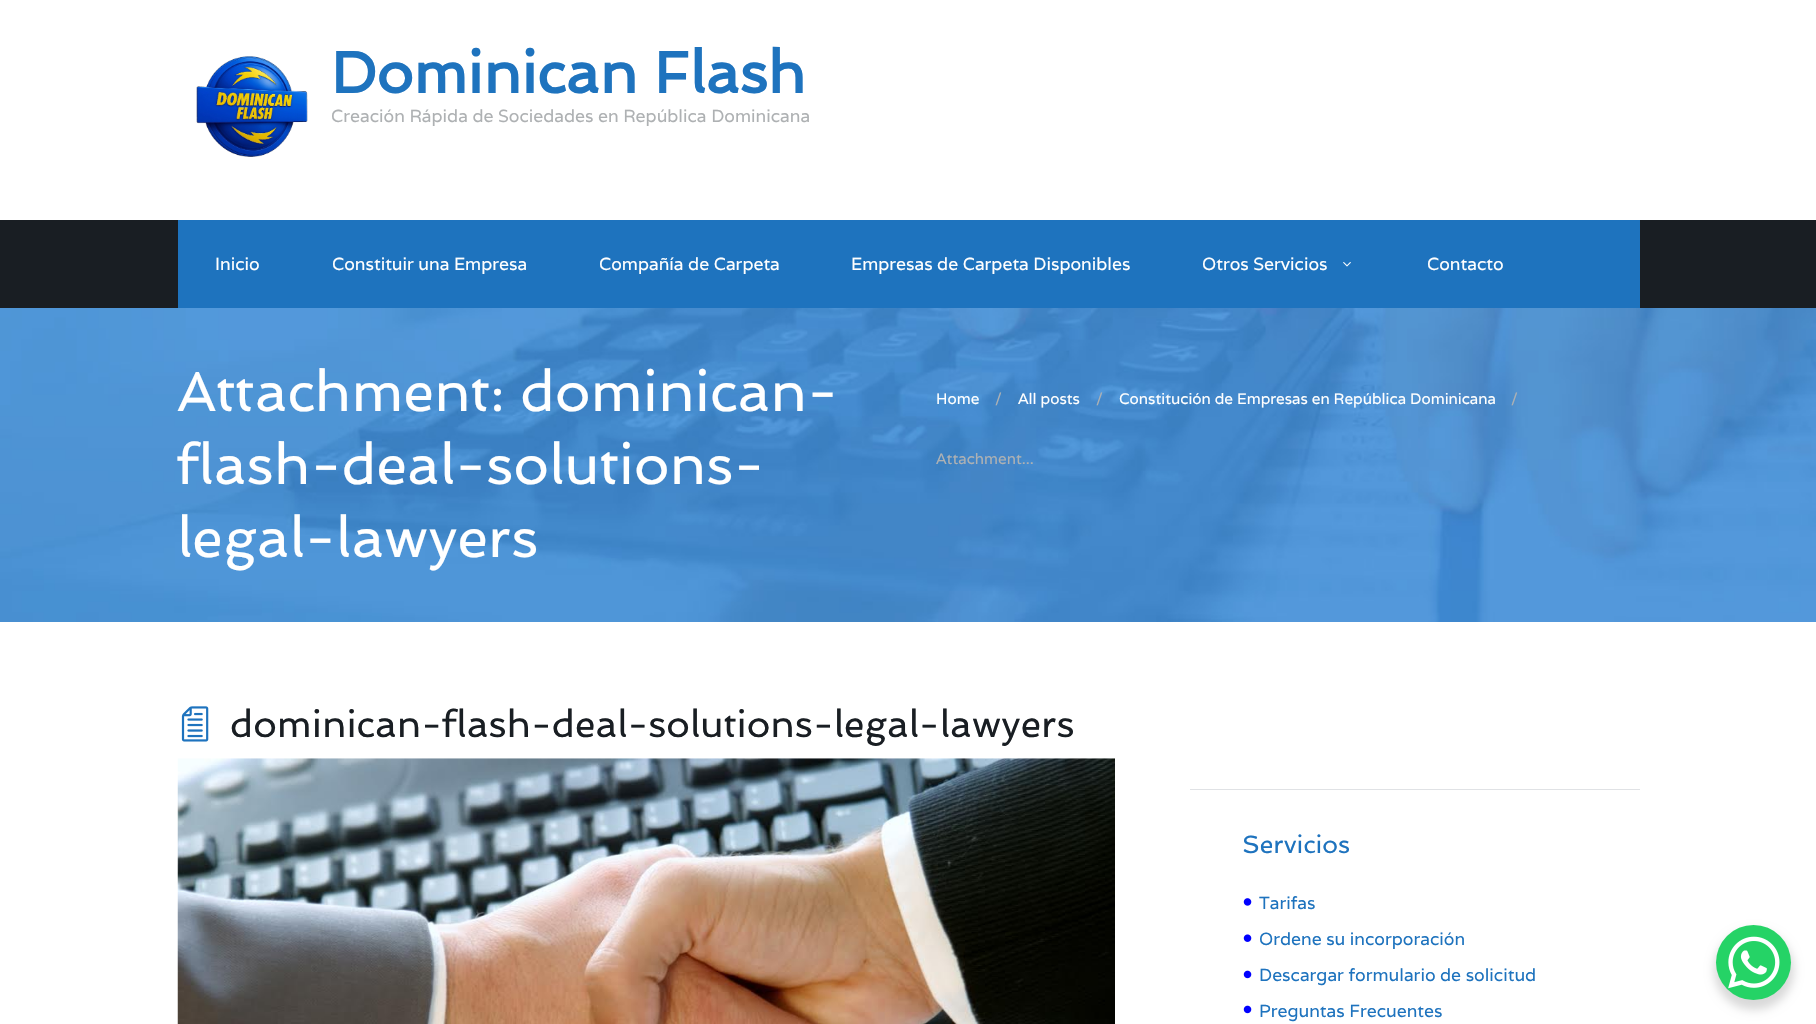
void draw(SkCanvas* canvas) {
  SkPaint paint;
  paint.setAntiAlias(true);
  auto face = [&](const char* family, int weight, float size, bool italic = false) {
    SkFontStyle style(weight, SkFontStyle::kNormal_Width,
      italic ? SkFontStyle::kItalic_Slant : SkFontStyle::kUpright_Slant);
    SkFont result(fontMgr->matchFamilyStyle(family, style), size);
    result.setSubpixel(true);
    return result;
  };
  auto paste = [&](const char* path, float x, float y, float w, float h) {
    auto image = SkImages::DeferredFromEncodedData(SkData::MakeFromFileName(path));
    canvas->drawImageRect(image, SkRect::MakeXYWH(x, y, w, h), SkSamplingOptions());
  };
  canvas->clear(0xffffffff);
  paste("img/1.png", 196, 56, 112, 101);
  paint.setColor(0xff191e23);
  canvas->drawRect(SkRect::MakeXYWH(0, 220, 1816, 88), paint);
  paint.setColor(0xff1e73be);
  canvas->drawRect(SkRect::MakeXYWH(178, 220, 1462, 88), paint);
  paste("img/2.png", 1343, 262, 8, 5);
  paste("img/3.png", 0, 308, 1816, 314);
  paste("img/4.png", 181, 706, 28, 36);
  paste("img/5.png", 177, 758, 938, 266);
  paint.setColor(0xffe0e2e5);
  canvas->drawRect(SkRect::MakeXYWH(1190, 789, 450, 1), paint);
  paste("img/6.png", 1243, 898, 9, 8);
  paste("img/7.png", 1243, 934, 9, 8);
  paste("img/8.png", 1243, 970, 9, 9);
  paste("img/8.png", 1243, 1005, 9, 9);
  paint.setColor(0x26000000);
  paint.setMaskFilter(SkMaskFilter::MakeBlur(kNormal_SkBlurStyle, 5));
  canvas->drawRoundRect(SkRect::MakeXYWH(1714, 930, 80, 80), 40, 40, paint);
  paint.setMaskFilter(nullptr);
  paint.setColor(0xff25d366);
  canvas->drawCircle(1753.5f, 962.5f, 37.5f, paint);
  paste("img/9.png", 1728, 936, 52, 53);
  auto f0 = face("Spinnaker", 700, 58.25f);
  paint.setColor(0xff1e73be);
  canvas->drawString("Dominican Flash", 331, 93, f0, paint);
  auto f1 = face("Varela", 400, 17.5f);
  paint.setColor(0xffaeb1b3);
  canvas->drawString("Creación Rápida de Sociedades en República Dominicana", 331, 122, f1, paint);
  paint.setColor(0xffffffff);
  {
    const struct { const char* s; float x, y; } items[] = {
      {"Inicio", 215, 270},
      {"Constituir una Empresa", 332, 270},
      {"Compañía de Carpeta", 599, 270},
      {"Empresas de Carpeta Disponibles", 851, 270},
      {"Otros Servicios", 1202, 270},
      {"Contacto", 1427, 270},
    };
    for (auto [s, x, y] : items) {
      canvas->drawString(s, x, y, f1, paint);
    }
  }
  auto f2 = face("Spinnaker", 400, 56.25f);
  {
    const struct { const char* s; float x, y; } items[] = {
      {"Attachment: dominican-", 177, 411},
      {"flash-deal-solutions-", 177, 484},
      {"legal-lawyers", 177, 557},
    };
    for (auto [s, x, y] : items) {
      canvas->drawString(s, x, y, f2, paint);
    }
  }
  auto f3 = face("Varela", 400, 15.2f);
  canvas->drawString("Home", 936, 404, f3, paint);
  paint.setColor(0xffaeb1b3);
  canvas->drawString("/", 995, 404, f3, paint);
  paint.setColor(0xffffffff);
  canvas->drawString("All posts", 1018, 404, f3, paint);
  paint.setColor(0xffaeb1b3);
  canvas->drawString("/", 1096, 404, f3, paint);
  paint.setColor(0xffffffff);
  canvas->drawString("Constitución de Empresas en República Dominicana", 1119, 404, f3, paint);
  paint.setColor(0xffaeb1b3);
  canvas->drawString("/", 1511, 404, f3, paint);
  canvas->drawString("Attachment...", 936, 464, f3, paint);
  auto f4 = face("Spinnaker", 400, 37.5f);
  paint.setColor(0xff191e23);
  canvas->drawString("dominican-flash-deal-solutions-legal-lawyers", 230, 737, f4, paint);
  auto f5 = face("Spinnaker", 400, 25);
  paint.setColor(0xff1e73be);
  canvas->drawString("Servicios", 1242, 853, f5, paint);
  {
    const struct { const char* s; float x, y; } items[] = {
      {"Tarifas", 1259, 909},
      {"Ordene su incorporación", 1259, 945},
      {"Descargar formulario de solicitud", 1259, 981},
      {"Preguntas Frecuentes", 1259, 1017},
    };
    for (auto [s, x, y] : items) {
      canvas->drawString(s, x, y, f1, paint);
    }
  }
}
